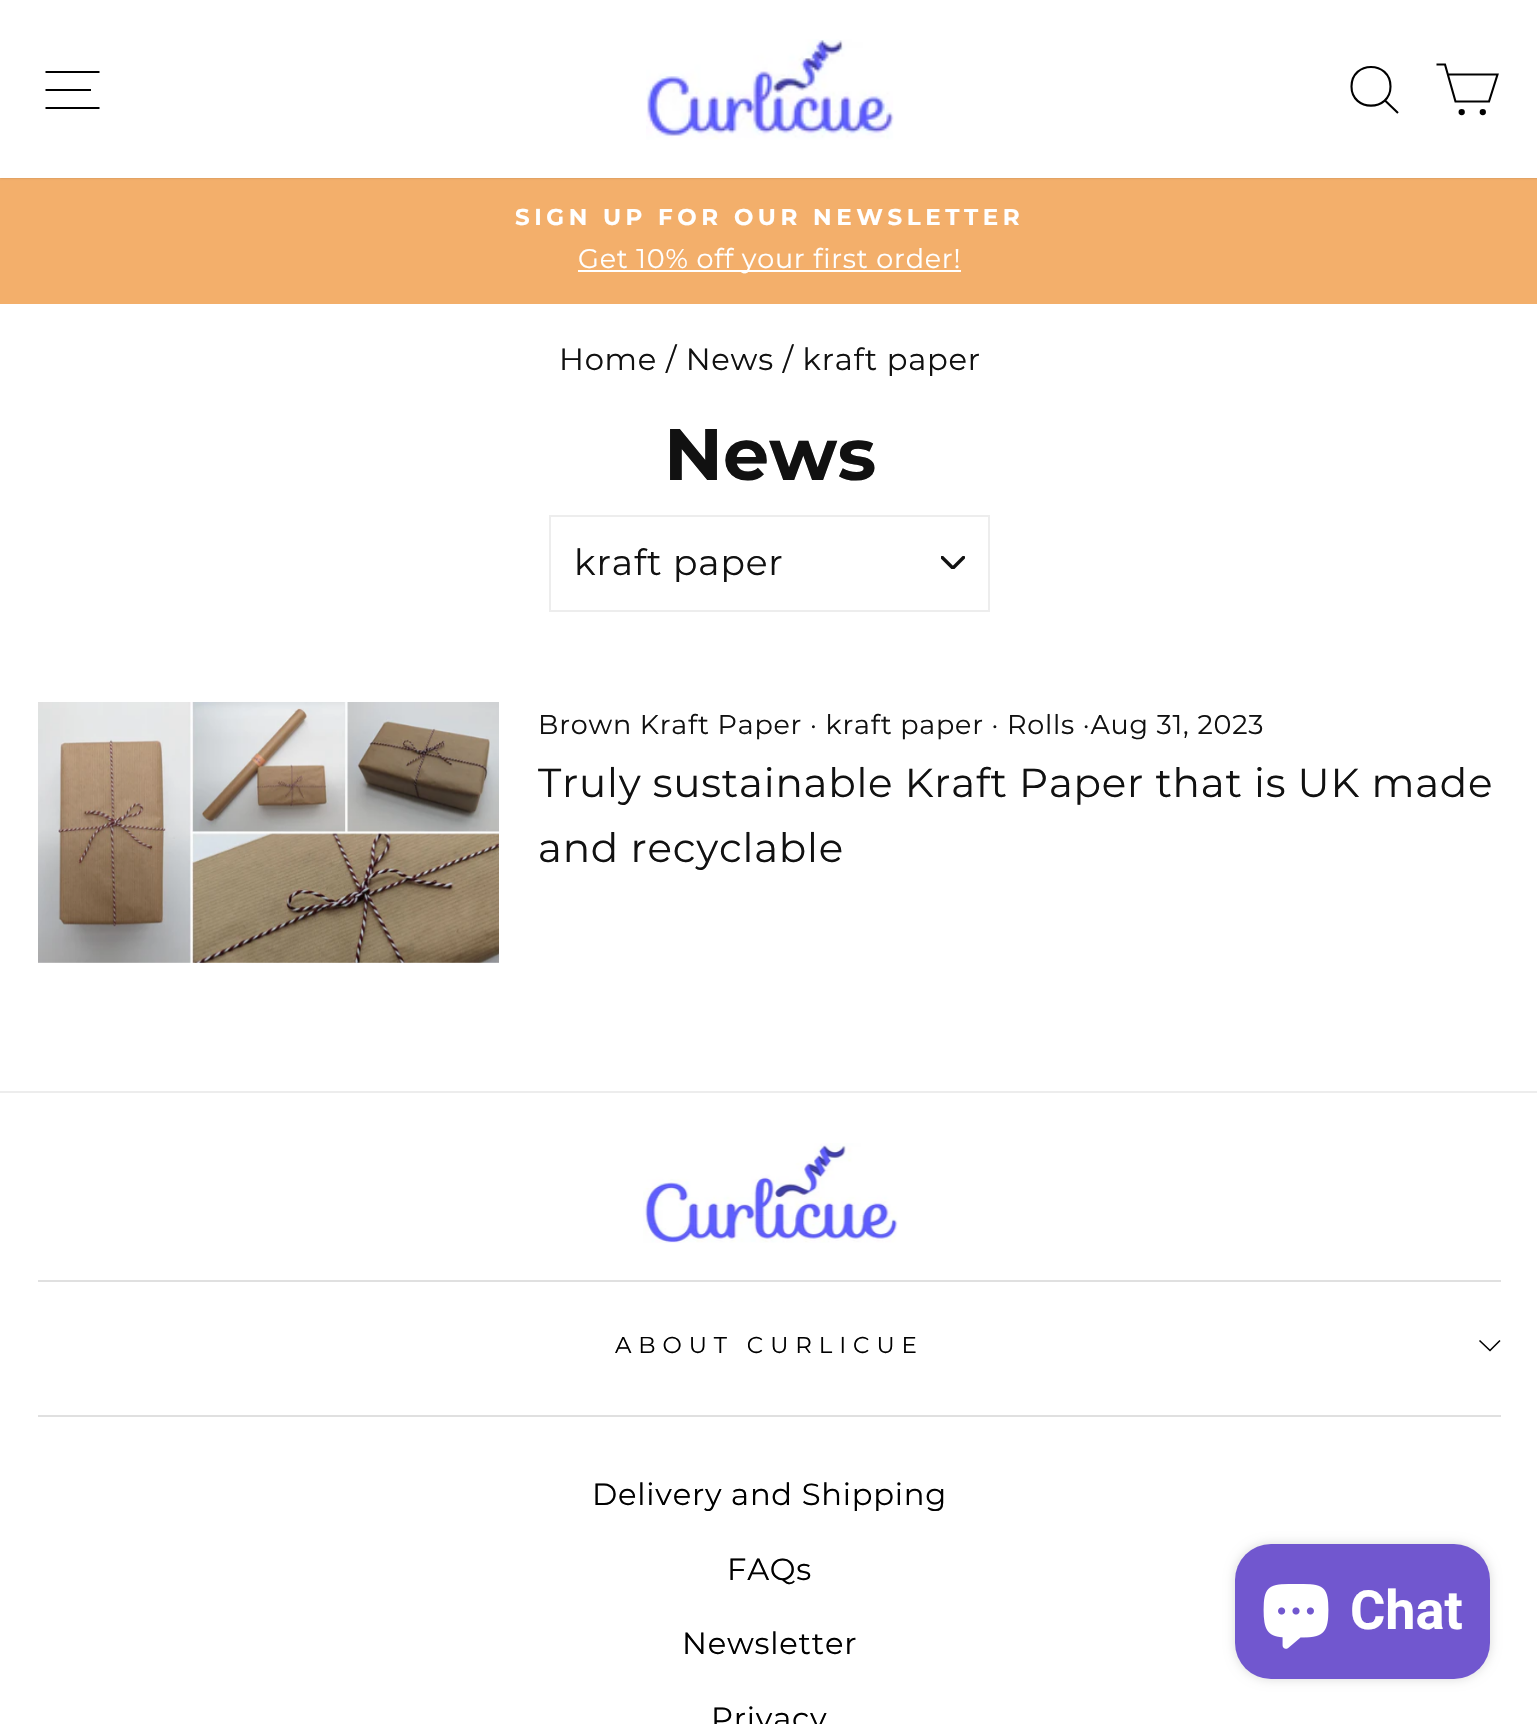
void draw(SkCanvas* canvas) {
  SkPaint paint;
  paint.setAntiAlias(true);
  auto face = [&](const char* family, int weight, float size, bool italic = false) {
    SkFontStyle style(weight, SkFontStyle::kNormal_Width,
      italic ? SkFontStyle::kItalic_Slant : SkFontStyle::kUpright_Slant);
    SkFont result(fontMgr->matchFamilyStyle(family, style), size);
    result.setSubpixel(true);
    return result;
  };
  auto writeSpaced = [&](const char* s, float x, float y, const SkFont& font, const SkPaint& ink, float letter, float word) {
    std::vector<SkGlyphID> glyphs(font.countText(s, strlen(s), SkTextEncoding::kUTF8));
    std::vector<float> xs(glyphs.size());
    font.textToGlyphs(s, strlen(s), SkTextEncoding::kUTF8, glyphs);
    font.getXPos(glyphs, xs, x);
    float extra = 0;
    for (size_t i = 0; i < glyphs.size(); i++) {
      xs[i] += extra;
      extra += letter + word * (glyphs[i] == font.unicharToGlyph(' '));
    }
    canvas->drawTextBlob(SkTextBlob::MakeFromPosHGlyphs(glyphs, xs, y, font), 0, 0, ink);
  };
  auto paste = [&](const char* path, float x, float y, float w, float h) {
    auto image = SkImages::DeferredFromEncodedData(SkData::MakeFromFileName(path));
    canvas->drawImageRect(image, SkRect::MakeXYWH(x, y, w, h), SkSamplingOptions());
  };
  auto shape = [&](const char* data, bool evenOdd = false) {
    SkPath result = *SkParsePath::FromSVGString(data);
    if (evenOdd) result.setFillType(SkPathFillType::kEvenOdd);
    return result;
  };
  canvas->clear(0xffffffff);
  paint.setColor(0xfff3af6b);
  canvas->drawRect(SkRect::MakeXYWH(0, 178, 1537, 126), paint);
  paint.setColor(0x33000000);
  paint.setMaskFilter(SkMaskFilter::MakeBlur(kNormal_SkBlurStyle, 1));
  canvas->drawRect(SkRect::MakeXYWH(0, 0, 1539, 178), paint);
  paint.setMaskFilter(nullptr);
  paint.setColor(0xffffffff);
  canvas->drawRect(SkRect::MakeXYWH(0, 0, 1537, 178), paint);
  paint.setStroke(true);
  paint.setStrokeWidth(2.1f);
  paint.setColor(0xff000000);
  canvas->drawPath(shape("M45.5 72H99.5M45.5 90H91M45.5 108H99.5"), paint);
  paste("img/1.png", 646, 39, 248, 101);
  canvas->drawPath(shape("M1390.5 86.5C1390.5 112 1351.5 112 1351.5 86.5C1351.5 60.5 1390.5 60.5 1390.5 86.5ZM1398 113L1385 100.5"), paint);
  canvas->drawPath(shape("M1448 74.5H1497.5L1489 101.5H1455.5L1445 64.5H1436.5"), paint);
  paint.setStroke(false);
  canvas->drawCircle(1461.7f, 112.1f, 2.1f, paint);
  paint.setStroke(true);
  canvas->drawCircle(1461.7f, 112.1f, 2.1f, paint);
  paint.setStroke(false);
  canvas->drawCircle(1482.8f, 112.1f, 2.1f, paint);
  paint.setStroke(true);
  canvas->drawCircle(1482.8f, 112.1f, 2.1f, paint);
  paint.setStroke(false);
  paint.setColor(0xffffffff);
  canvas->drawRect(SkRect::MakeXYWH(578, 270, 383, 2), paint);
  paste("img/2.png", 941, 556, 24, 13);
  paint.setStroke(true);
  paint.setStrokeWidth(2);
  paint.setColor(0xffededed);
  canvas->drawRect(SkRect::MakeXYWH(550, 516, 439, 95), paint);
  paste("img/3.png", 38, 702, 461, 261);
  paint.setStroke(false);
  canvas->drawRect(SkRect::MakeXYWH(0, 1091, 1537, 2), paint);
  paste("img/4.png", 643, 1143, 255, 100);
  paint.setColor(0xffe0e0e0);
  canvas->drawRect(SkRect::MakeXYWH(38, 1280, 1463, 2), paint);
  paint.setStroke(true);
  paint.setStrokeWidth(1.6f);
  paint.setColor(0xff000000);
  canvas->drawPath(shape("M1479.5 1340.5L1490 1350.5L1500 1340.5"), paint);
  paint.setStroke(false);
  paint.setColor(0xffe0e0e0);
  canvas->drawRect(SkRect::MakeXYWH(38, 1415, 1463, 2), paint);
  paint.setColor(0x26000000);
  paint.setMaskFilter(SkMaskFilter::MakeBlur(kNormal_SkBlurStyle, 5.5f));
  canvas->drawRoundRect(SkRect::MakeXYWH(1235, 1544, 255, 135), 36, 36, paint);
  paint.setMaskFilter(nullptr);
  paint.setColor(0xff7157cf);
  canvas->drawRoundRect(SkRect::MakeXYWH(1235, 1544, 255, 135), 36, 36, paint);
  paste("img/5.png", 1263, 1584, 66, 65);
  auto f0 = face("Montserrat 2", 100, 22.95f);
  paint.setColor(0xffffffff);
  writeSpaced("SIGN UP FOR OUR NEWSLETTER", 515, 225, f0, paint, 4.6f, 0);
  auto f1 = face("Montserrat", 100, 27);
  writeSpaced("Get 10% off your first order!", 578, 268, f1, paint, 0.77f, 0);
  auto f2 = face("Montserrat", 100, 30.6f);
  paint.setColor(0xff111111);
  writeSpaced("Home / News / kraft paper", 559, 370, f2, paint, 0.77f, 0);
  auto f3 = face("Montserrat 2", 100, 73);
  canvas->drawString("News", 664, 480, f3, paint);
  auto f4 = face("Montserrat", 100, 36);
  writeSpaced("kraft paper", 574, 575, f4, paint, 0.9f, 0);
  writeSpaced("Brown Kraft Paper · kraft paper · Rolls ·Aug 31, 2023", 538, 734, f1, paint, 0.77f, 0);
  auto f5 = face("Montserrat", 100, 40.5f);
  writeSpaced("Truly sustainable Kraft Paper that is UK made", 538, 797, f5, paint, 0.77f, 0);
  writeSpaced("and recyclable", 538, 862, f5, paint, 0.77f, 0);
  auto f6 = face("Montserrat", 100, 22.95f);
  paint.setColor(0xff000000);
  writeSpaced("ABOUT CURLICUE", 615, 1353, f6, paint, 6.9f, 0);
  {
    const struct { const char* s; float x, y; } items[] = {
      {"Delivery and Shipping", 592, 1505},
      {"FAQs", 727, 1580},
      {"Newsletter", 682, 1654},
      {"Privacy", 711, 1729},
    };
    for (auto [s, x, y] : items) {
      writeSpaced(s, x, y, f2, paint, 0.77f, 0);
    }
  }
  auto f7 = face("Roboto", 700, 54);
  paint.setColor(0xffffffff);
  canvas->drawString("Chat", 1350, 1629, f7, paint);
}
